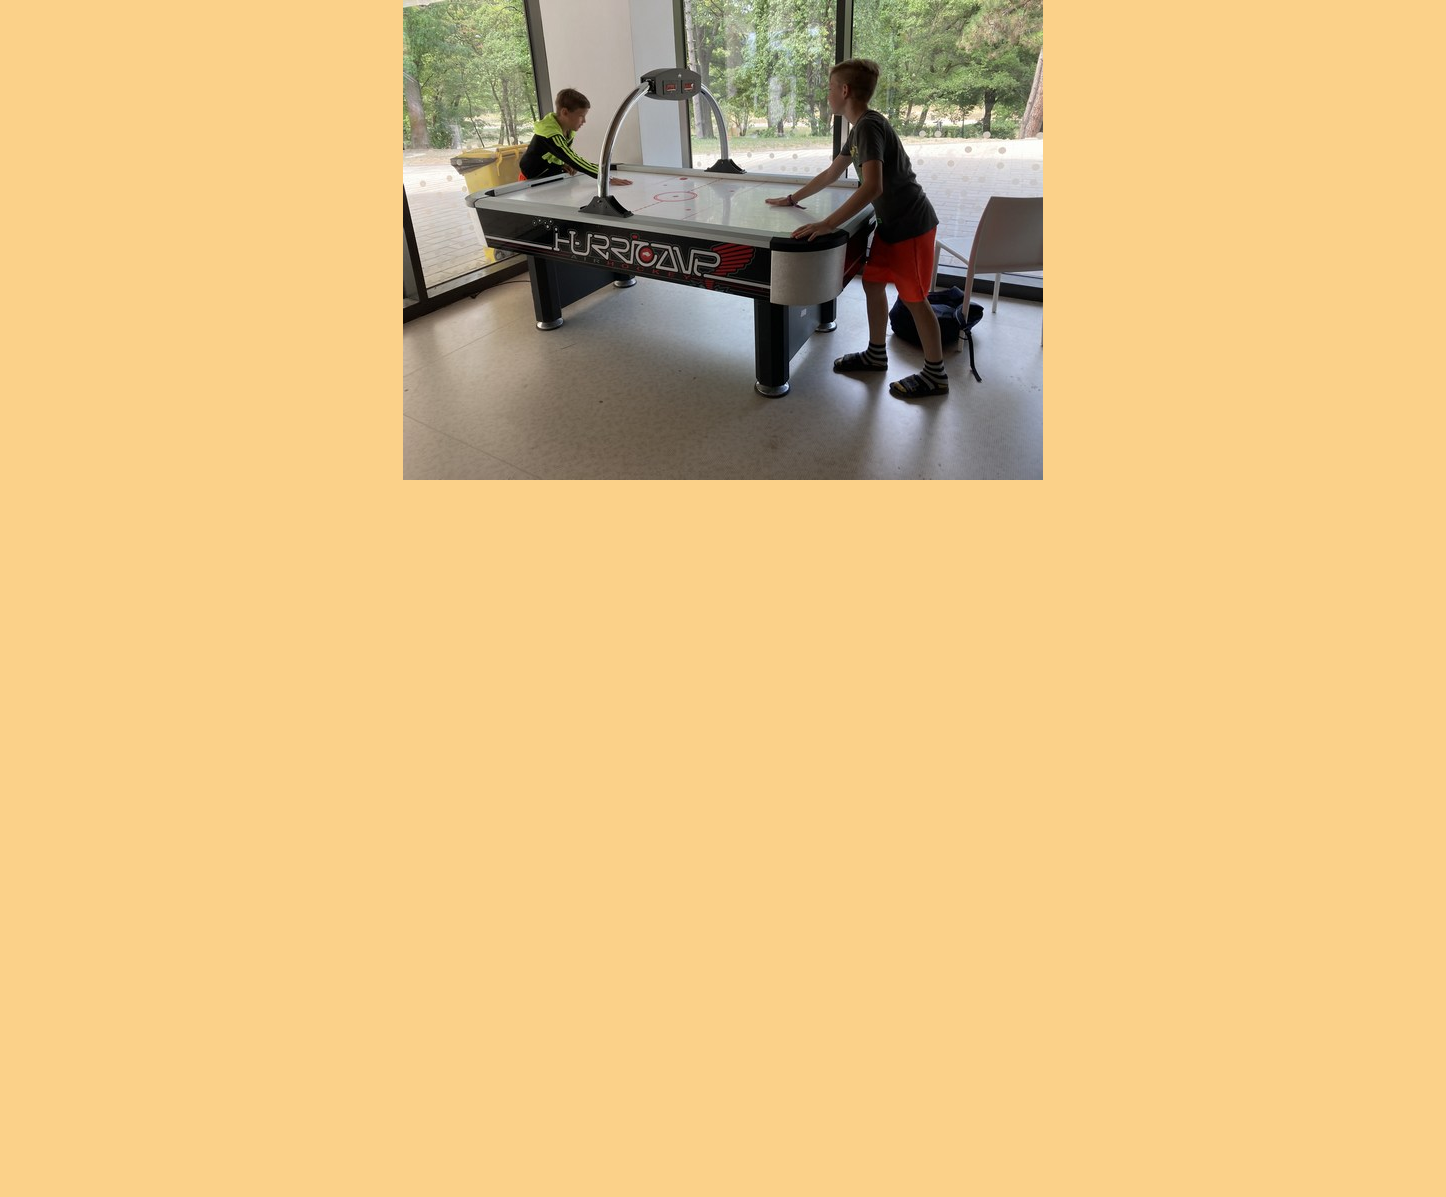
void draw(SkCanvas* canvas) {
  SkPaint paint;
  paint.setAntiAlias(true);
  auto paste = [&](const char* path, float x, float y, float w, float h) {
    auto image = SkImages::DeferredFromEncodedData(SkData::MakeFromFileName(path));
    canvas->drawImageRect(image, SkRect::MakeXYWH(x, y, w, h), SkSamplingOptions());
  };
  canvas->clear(0xfffbd189);
  paste("img/1.png", 403, 0, 640, 480);
}
